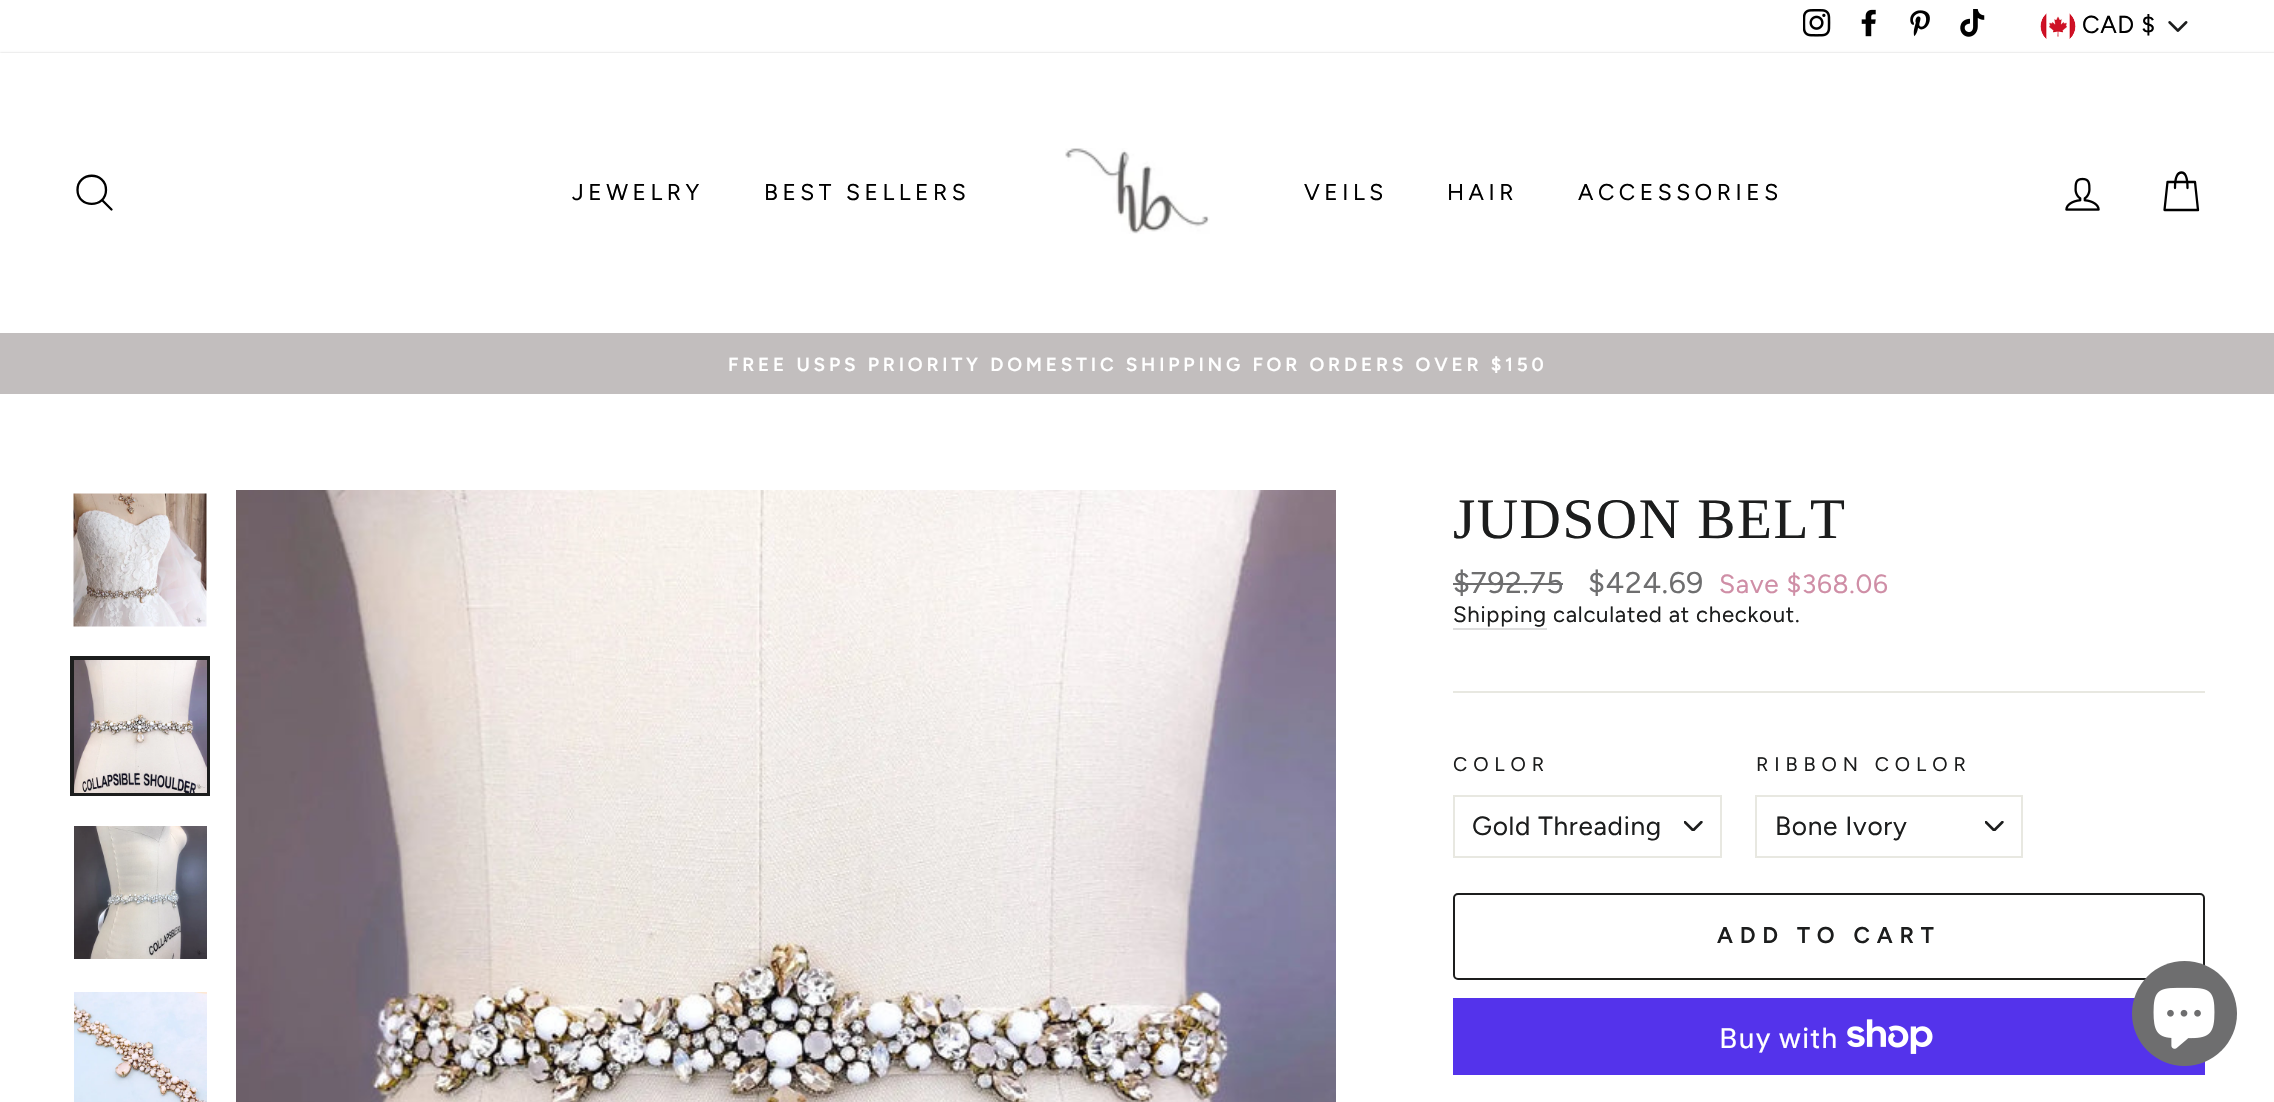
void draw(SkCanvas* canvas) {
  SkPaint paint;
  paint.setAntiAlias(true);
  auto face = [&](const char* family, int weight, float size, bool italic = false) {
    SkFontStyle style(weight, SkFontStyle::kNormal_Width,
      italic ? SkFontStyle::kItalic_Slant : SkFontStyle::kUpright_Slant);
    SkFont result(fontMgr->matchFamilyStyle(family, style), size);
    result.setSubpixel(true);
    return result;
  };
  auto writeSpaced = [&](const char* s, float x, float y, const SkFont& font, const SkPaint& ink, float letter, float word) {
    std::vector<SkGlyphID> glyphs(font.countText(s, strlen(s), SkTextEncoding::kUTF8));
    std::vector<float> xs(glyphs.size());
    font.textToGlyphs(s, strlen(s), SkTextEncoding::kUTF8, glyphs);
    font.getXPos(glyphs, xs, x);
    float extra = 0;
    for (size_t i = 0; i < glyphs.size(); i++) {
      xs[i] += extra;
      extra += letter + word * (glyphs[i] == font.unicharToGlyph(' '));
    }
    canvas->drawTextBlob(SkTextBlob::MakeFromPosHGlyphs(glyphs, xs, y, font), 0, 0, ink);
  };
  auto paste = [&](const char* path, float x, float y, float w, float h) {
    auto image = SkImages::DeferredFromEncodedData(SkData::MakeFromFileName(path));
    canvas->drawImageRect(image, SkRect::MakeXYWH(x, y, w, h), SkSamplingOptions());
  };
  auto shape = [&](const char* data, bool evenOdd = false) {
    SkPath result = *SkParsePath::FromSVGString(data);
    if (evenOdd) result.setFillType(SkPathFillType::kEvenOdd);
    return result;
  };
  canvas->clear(0xffffffff);
  paste("img/1.png", 1803, 9, 28, 28);
  paste("img/2.png", 1861, 9, 15, 28);
  paste("img/3.png", 1910, 10, 20, 27);
  paste("img/4.png", 1960, 9, 25, 28);
  paste("img/5.png", 2168, 21, 20, 11);
  paste("img/6.png", 2040, 13, 36, 26);
  paint.setColor(0x33000000);
  paint.setMaskFilter(SkMaskFilter::MakeBlur(kNormal_SkBlurStyle, 1));
  canvas->drawRect(SkRect::MakeXYWH(0, 53, 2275, 280), paint);
  paint.setMaskFilter(nullptr);
  paint.setColor(0xffffffff);
  canvas->drawRect(SkRect::MakeXYWH(0, 53, 2274, 280), paint);
  paint.setStroke(true);
  paint.setStrokeWidth(2.3f);
  paint.setStrokeCap(SkPaint::kRound_Cap);
  paint.setStrokeJoin(SkPaint::kRound_Join);
  paint.setColor(0xff000000);
  canvas->drawPath(shape("M106 190C106 208.5 77.5 208.5 77.5 190C77.5 171 106 171 106 190ZM111.5 209.5L102 200"), paint);
  paste("img/7.png", 1065, 148, 145, 86);
  paste("img/8.png", 2065, 177, 35, 34);
  canvas->drawPath(shape("M2175 188C2175 176 2178 172.5 2181.5 172.5C2184.5 172.5 2187.5 176 2187.5 188M2167.5 182H2195L2198 210H2164.5Z"), paint);
  paint.setStroke(false);
  paint.setColor(0xffc2bebe);
  canvas->drawRect(SkRect::MakeXYWH(0, 333, 2274, 61), paint);
  paste("img/9.png", 73, 493, 134, 134);
  paint.setStroke(true);
  paint.setStrokeWidth(4);
  paint.setStrokeCap(SkPaint::kButt_Cap);
  paint.setStrokeJoin(SkPaint::kMiter_Join);
  paint.setColor(0xff1c1d1d);
  canvas->drawRect(SkRect::MakeXYWH(72, 658, 136, 136), paint);
  paste("img/10.png", 74, 660, 133, 133);
  paste("img/11.png", 74, 826, 133, 133);
  paste("img/12.png", 74, 992, 133, 110);
  paste("img/13.png", 236, 490, 1100, 612);
  paint.setStroke(false);
  {
    const struct { float x, y, w, h; SkColor color; } items[] = {
      {1453, 583, 110, 2, 0xff6e6e6f},
      {1453, 628, 94, 2, 0xffdddddd},
      {1453, 691, 752, 2, 0xffe8e8e1},
    };
    for (auto [x, y, w, h, color] : items) {
      paint.setColor(color);
      canvas->drawRect(SkRect::MakeXYWH(x, y, w, h), paint);
    }
  }
  paste("img/14.png", 1684, 821, 19, 10);
  paint.setStroke(true);
  paint.setStrokeWidth(2);
  canvas->drawRect(SkRect::MakeXYWH(1454, 796, 267, 61), paint);
  paste("img/14.png", 1985, 821, 19, 10);
  canvas->drawRect(SkRect::MakeXYWH(1756, 796, 266, 61), paint);
  paint.setColor(0xff1c1d1d);
  canvas->drawRoundRect(SkRect::MakeXYWH(1454, 894, 750, 85), 4, 4, paint);
  paint.setStroke(false);
  paint.setColor(0xff5433eb);
  canvas->drawRect(SkRect::MakeXYWH(1453, 998, 752, 77), paint);
  paste("img/15.png", 1847, 1019, 86, 35);
  paint.setColor(0xff6e6e6f);
  canvas->drawCircle(2184.5f, 1013.5f, 52.5f, paint);
  paste("img/16.png", 2153, 987, 62, 62);
  auto f0 = face("Figtree", 400, 24.5f);
  paint.setColor(0xff000000);
  writeSpaced("CAD $", 2082, 33, f0, paint, 0.5f, 0);
  auto f1 = face("Figtree", 400, 22.75f);
  {
    const struct { const char* s; float x, y; } items[] = {
      {"JEWELRY", 572, 200},
      {"BEST SELLERS", 764, 200},
      {"VEILS", 1304, 200},
      {"HAIR", 1447, 200},
      {"ACCESSORIES", 1578, 200},
    };
    for (auto [s, x, y] : items) {
      writeSpaced(s, x, y, f1, paint, 4.5f, 0);
    }
  }
  auto f2 = face("Figtree", 600, 18.95f);
  paint.setColor(0xffffffff);
  writeSpaced("FREE USPS PRIORITY DOMESTIC SHIPPING FOR ORDERS OVER $150", 728, 371, f2, paint, 3.8f, 0);
  auto f3 = face("Liberation Serif", 400, 57.25f);
  paint.setColor(0xff1c1d1d);
  writeSpaced("JUDSON BELT", 1453, 538, f3, paint, 1.5f, 0);
  auto f4 = face("Figtree", 400, 30);
  paint.setColor(0xff6e6e6f);
  writeSpaced("$792.75", 1453, 593, f4, paint, 0.7f, 0);
  writeSpaced("$424.69", 1588, 593, f4, paint, 0.7f, 0);
  auto f5 = face("Figtree", 400, 26.25f);
  paint.setColor(0xffcf8ea6);
  writeSpaced("Save $368.06", 1719, 593, f5, paint, 0.7f, 0);
  auto f6 = face("Figtree", 400, 22.25f);
  paint.setColor(0xff1c1d1d);
  writeSpaced("Shipping", 1453, 622, f6, paint, 0.7f, 0);
  writeSpaced("calculated at checkout.", 1553, 622, f6, paint, 0.7f, 0);
  auto f7 = face("Figtree", 400, 19.75f);
  writeSpaced("COLOR", 1453, 771, f7, paint, 5.9f, 0);
  writeSpaced("Gold Threading", 1472, 835, f5, paint, 0.7f, 0);
  writeSpaced("RIBBON COLOR", 1756, 771, f7, paint, 5.9f, 0);
  writeSpaced("Bone Ivory", 1775, 835, f5, paint, 0.7f, 0);
  auto f8 = face("Figtree", 600, 22.75f);
  writeSpaced("ADD TO CART", 1717, 943, f8, paint, 6.75f, 0);
  auto f9 = face("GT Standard", 400, 28);
  paint.setColor(0xffffffff);
  writeSpaced("Buy with", 1719, 1048, f9, paint, 0.7f, 0);
}
